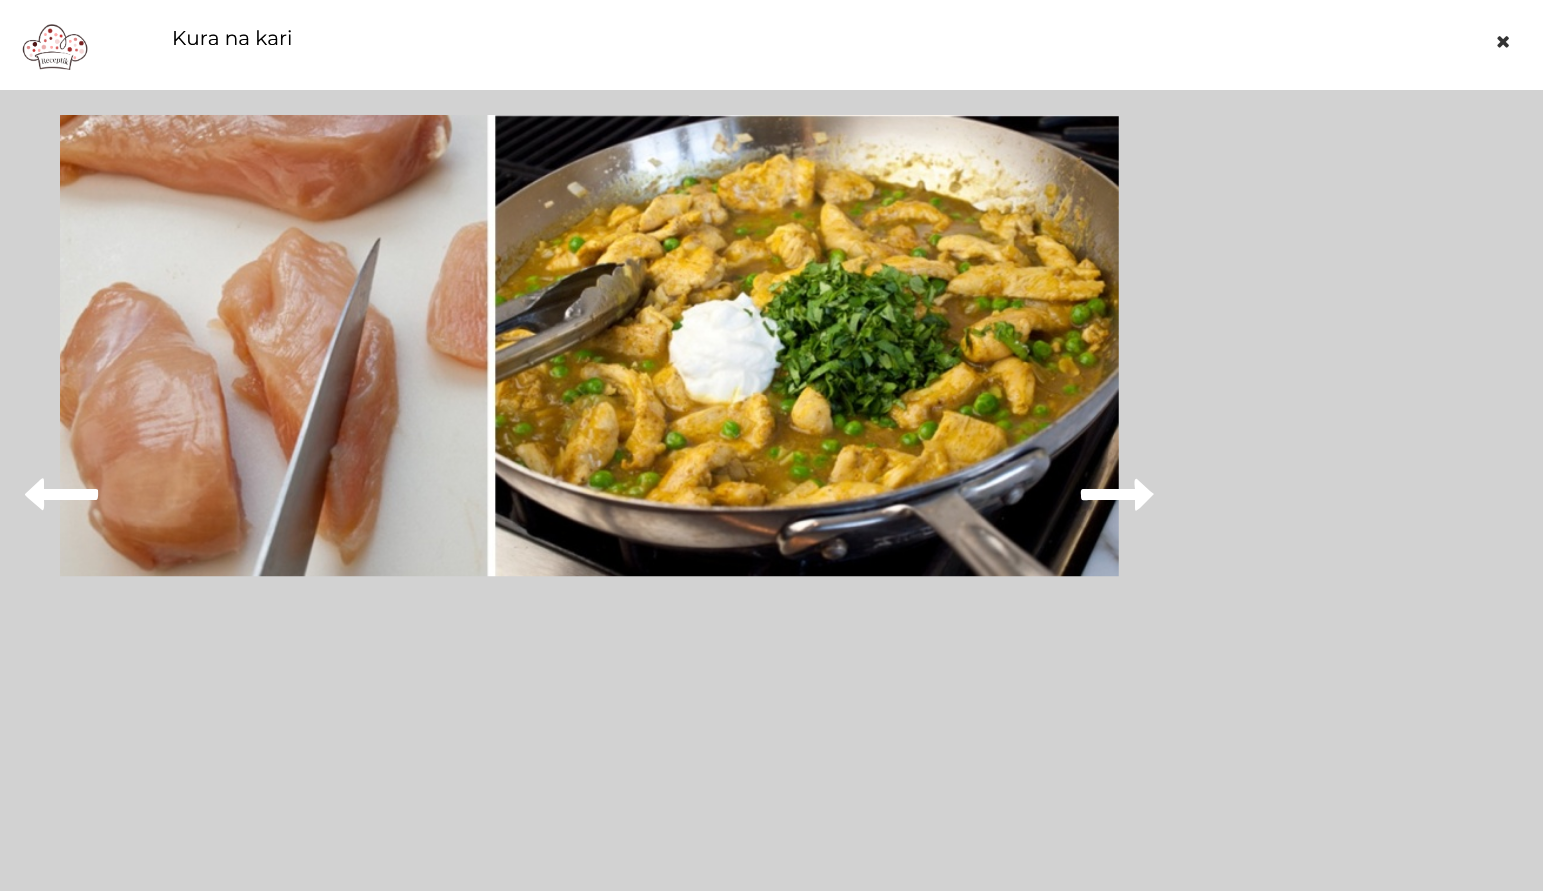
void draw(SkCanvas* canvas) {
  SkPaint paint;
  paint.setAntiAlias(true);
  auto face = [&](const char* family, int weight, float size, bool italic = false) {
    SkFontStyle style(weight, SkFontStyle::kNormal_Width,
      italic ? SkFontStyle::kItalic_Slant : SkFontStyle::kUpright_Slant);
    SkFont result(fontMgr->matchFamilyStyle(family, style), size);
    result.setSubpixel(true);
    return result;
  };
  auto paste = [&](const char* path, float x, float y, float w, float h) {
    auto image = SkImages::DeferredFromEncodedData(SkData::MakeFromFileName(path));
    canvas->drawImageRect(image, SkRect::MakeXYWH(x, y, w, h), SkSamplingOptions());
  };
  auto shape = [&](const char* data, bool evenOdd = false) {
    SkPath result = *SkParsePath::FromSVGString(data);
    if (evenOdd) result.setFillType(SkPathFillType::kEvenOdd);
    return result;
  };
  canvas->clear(0xffd2d2d2);
  paint.setColor(0xffffffff);
  canvas->drawRect(SkRect::MakeXYWH(0, 0, 1543, 90), paint);
  paste("img/1.png", 22, 24, 66, 46);
  paste("img/2.png", 1497, 36, 12, 12);
  paste("img/3.png", 60, 115, 1059, 462);
  canvas->drawPath(shape("M98 490C98 492 99 500 96 500H44C44 501 45 512 42 510L28 498L25 495V494L39 481C41 479 44 476 44 481V489H96C97 489 98 490 98 490Z"), paint);
  canvas->drawPath(shape("M1154 494L1153 495L1140 508C1137 510 1135 513 1135 508V500H1091C1082 500 1081 502 1081 495C1081 494 1080 489 1083 489H1135C1135 488 1133 477 1137 479L1150 491Z"), paint);
  auto f0 = face("Montserrat", 100, 20);
  paint.setColor(0xff000000);
  canvas->drawString("Kura na kari", 172, 45, f0, paint);
}
